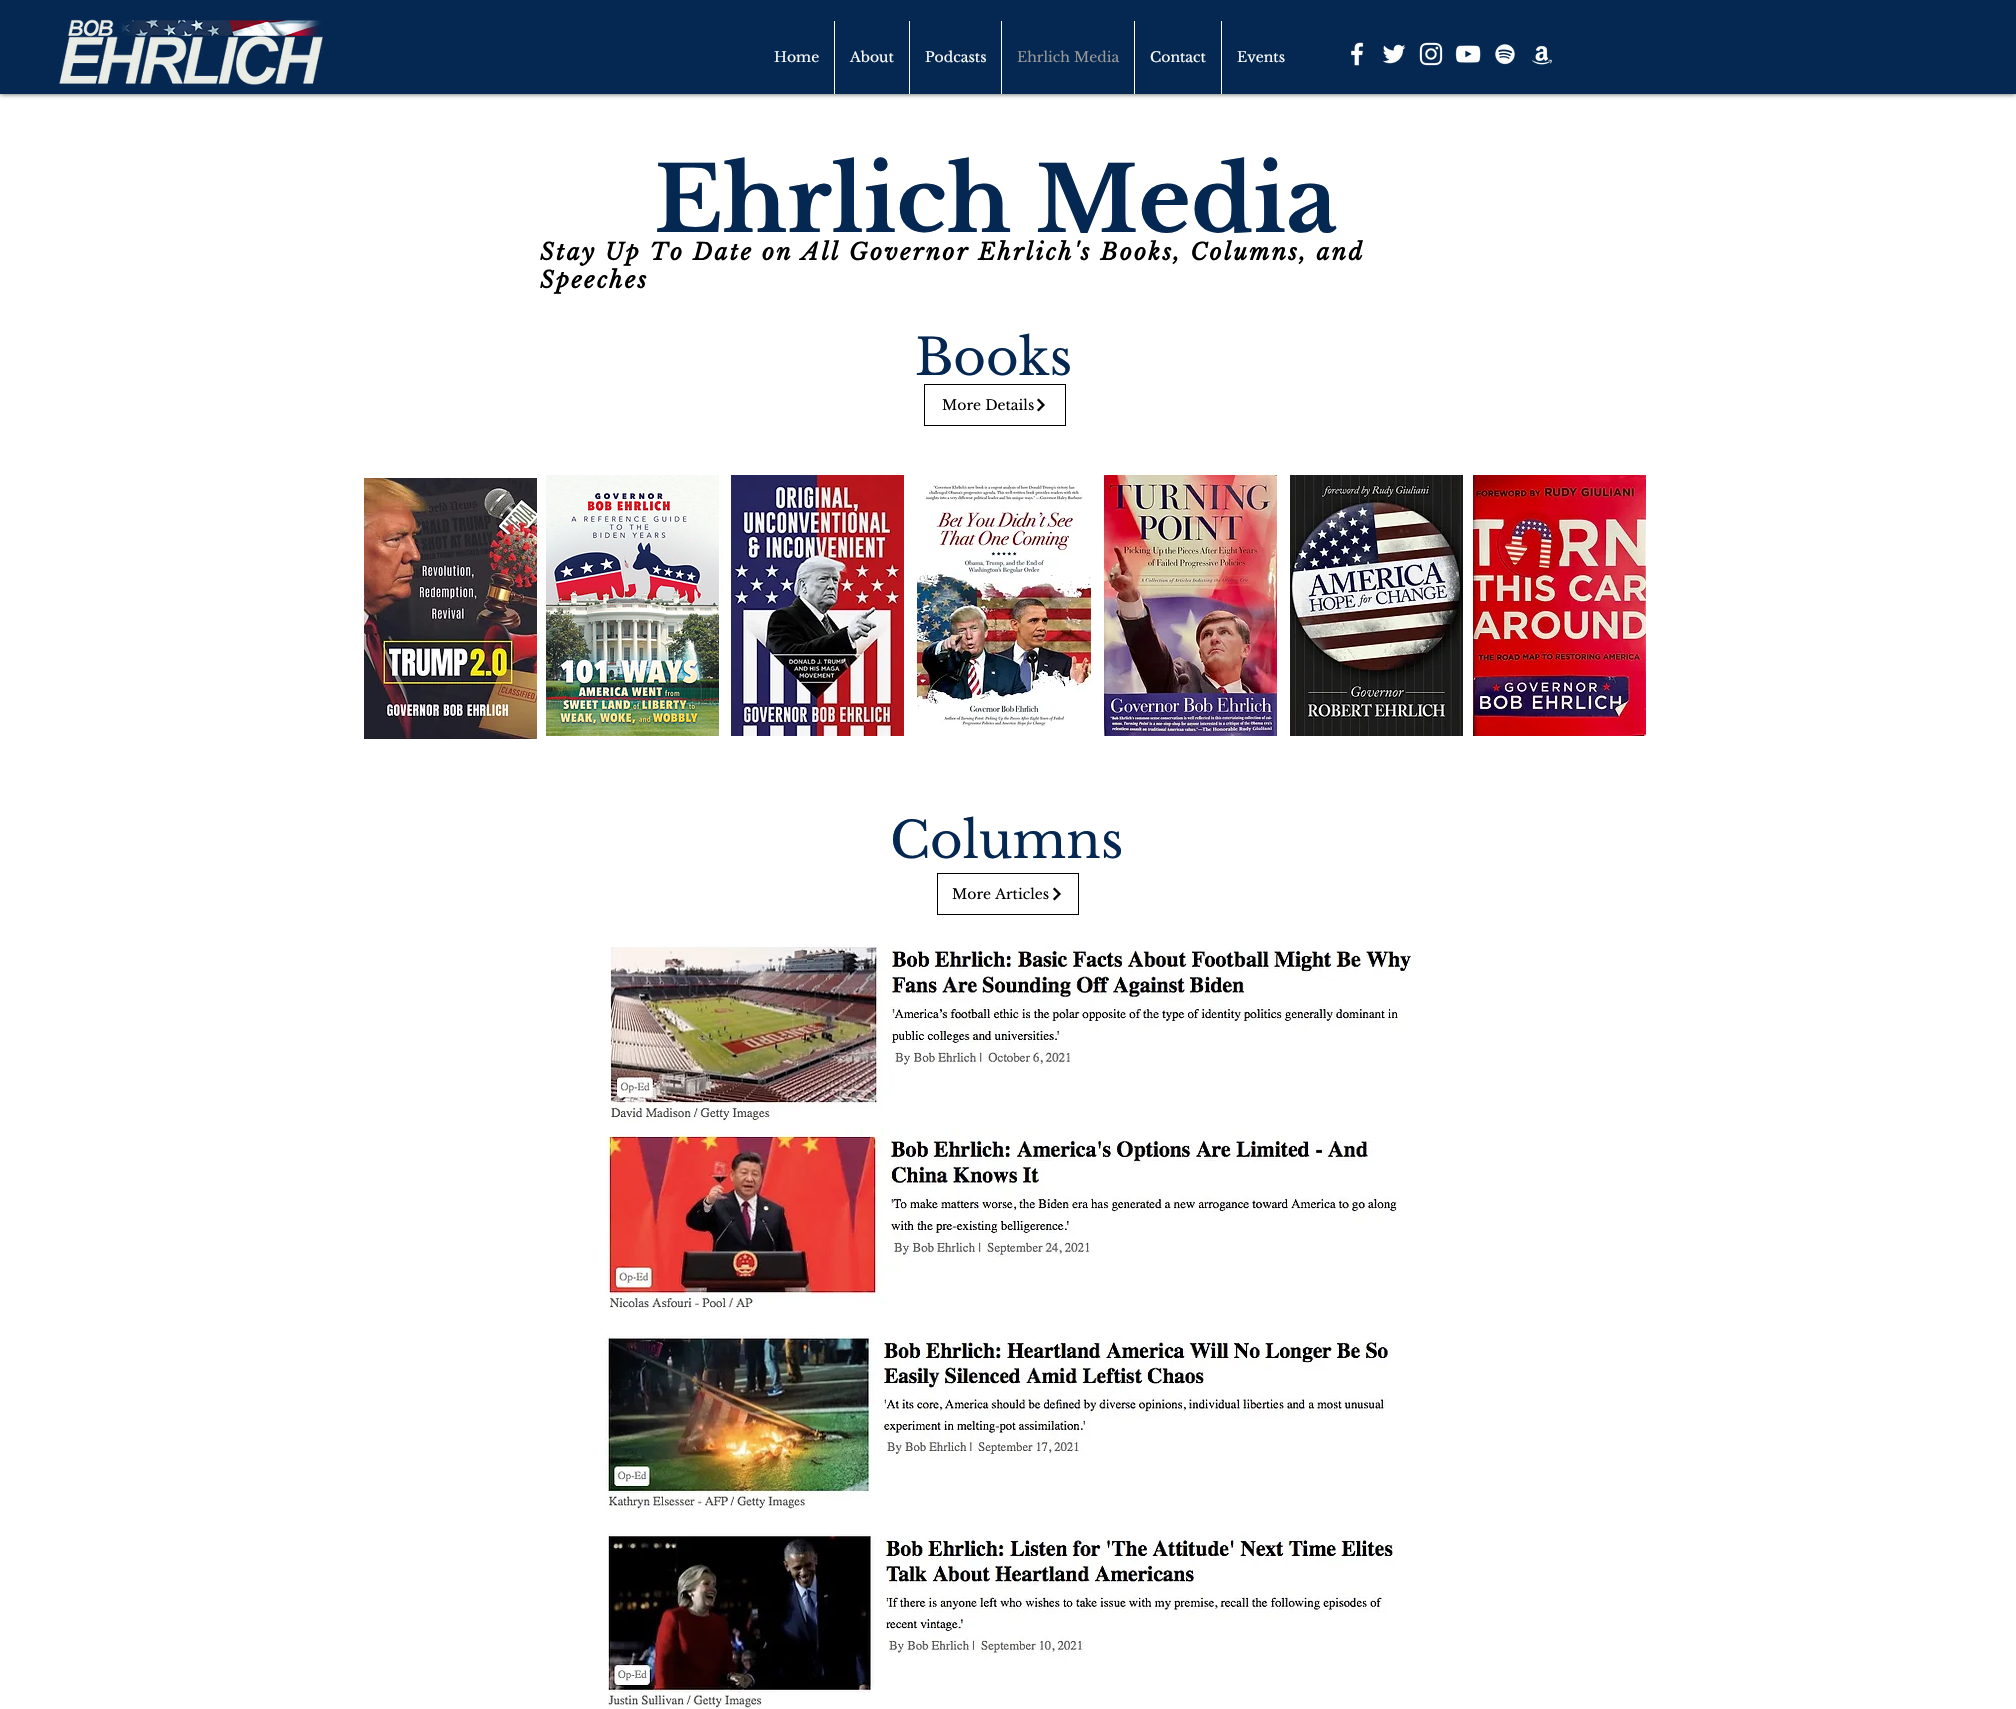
void draw(SkCanvas* canvas) {
  SkPaint paint;
  paint.setAntiAlias(true);
  auto face = [&](const char* family, int weight, float size, bool italic = false) {
    SkFontStyle style(weight, SkFontStyle::kNormal_Width,
      italic ? SkFontStyle::kItalic_Slant : SkFontStyle::kUpright_Slant);
    SkFont result(fontMgr->matchFamilyStyle(family, style), size);
    result.setSubpixel(true);
    return result;
  };
  auto writeSpaced = [&](const char* s, float x, float y, const SkFont& font, const SkPaint& ink, float letter, float word) {
    std::vector<SkGlyphID> glyphs(font.countText(s, strlen(s), SkTextEncoding::kUTF8));
    std::vector<float> xs(glyphs.size());
    font.textToGlyphs(s, strlen(s), SkTextEncoding::kUTF8, glyphs);
    font.getXPos(glyphs, xs, x);
    float extra = 0;
    for (size_t i = 0; i < glyphs.size(); i++) {
      xs[i] += extra;
      extra += letter + word * (glyphs[i] == font.unicharToGlyph(' '));
    }
    canvas->drawTextBlob(SkTextBlob::MakeFromPosHGlyphs(glyphs, xs, y, font), 0, 0, ink);
  };
  auto paste = [&](const char* path, float x, float y, float w, float h) {
    auto image = SkImages::DeferredFromEncodedData(SkData::MakeFromFileName(path));
    canvas->drawImageRect(image, SkRect::MakeXYWH(x, y, w, h), SkSamplingOptions());
  };
  canvas->clear(0xffffffff);
  paint.setColor(0xb3000000);
  paint.setMaskFilter(SkMaskFilter::MakeBlur(kNormal_SkBlurStyle, 2.5f));
  canvas->drawRect(SkRect::MakeXYWH(0, 0, 2016, 94), paint);
  paint.setMaskFilter(nullptr);
  paint.setColor(0xff042852);
  canvas->drawRect(SkRect::MakeXYWH(0, 0, 2016, 94), paint);
  paste("img/1.png", 1351, 42, 13, 24);
  paste("img/2.png", 1383, 44, 23, 20);
  paste("img/3.png", 1419, 42, 24, 24);
  paste("img/4.png", 1455, 45, 26, 18);
  paste("img/5.png", 1495, 44, 20, 21);
  paste("img/6.png", 1531, 45, 21, 20);
  paste("img/7.png", 59, 18, 264, 68);
  {
    const struct { float x, y, w, h; SkColor color; } items[] = {
      {834, 21, 1, 73, 0xffffffff},
      {909, 21, 1, 73, 0xffffffff},
      {1001, 21, 1, 73, 0xffffffff},
      {1134, 21, 1, 73, 0xffffffff},
      {1221, 21, 1, 73, 0xffffffff},
    };
    for (auto [x, y, w, h, color] : items) {
      paint.setColor(color);
      canvas->drawRect(SkRect::MakeXYWH(x, y, w, h), paint);
    }
  }
  paint.setStroke(true);
  paint.setStrokeWidth(1);
  paint.setColor(0xff000000);
  canvas->drawRect(SkRect::MakeXYWH(924.5f, 384.5f, 141, 41), paint);
  paste("img/8.png", 1037, 398, 8, 14);
  paste("img/9.png", 364, 478, 173, 261);
  paste("img/10.png", 546, 475, 173, 261);
  paste("img/11.png", 731, 475, 173, 261);
  paste("img/12.png", 917, 483, 174, 244);
  paste("img/13.png", 1104, 475, 173, 261);
  paste("img/14.png", 1290, 475, 173, 261);
  paste("img/15.png", 1473, 475, 173, 261);
  canvas->drawRect(SkRect::MakeXYWH(937.5f, 873.5f, 141, 41), paint);
  paste("img/8.png", 1053, 887, 8, 14);
  paste("img/16.png", 610, 947, 804, 176);
  paste("img/17.png", 605, 1129, 792, 180);
  paste("img/18.png", 605, 1335, 785, 176);
  paste("img/19.png", 607, 1533, 789, 176);
  auto f0 = face("Libre Baskerville", 400, 14);
  paint.setStroke(false);
  paint.setColor(0xffffffff);
  {
    const struct { const char* s; float x, y; } items[] = {
      {"Home", 774, 62},
      {"About", 850, 62},
      {"Podcasts", 925, 62},
    };
    for (auto [s, x, y] : items) {
      canvas->drawString(s, x, y, f0, paint);
    }
  }
  paint.setColor(0xff999997);
  canvas->drawString("Ehrlich Media", 1017, 62, f0, paint);
  paint.setColor(0xffffffff);
  canvas->drawString("Contact", 1150, 62, f0, paint);
  canvas->drawString("Events", 1237, 62, f0, paint);
  auto f1 = face("Libre Baskerville", 700, 90);
  paint.setColor(0xff042852);
  canvas->drawString("Ehrlich Media", 654, 232, f1, paint);
  auto f2 = face("Libre Baskerville", 700, 23, true);
  paint.setColor(0xff000000);
  writeSpaced("Stay Up To Date on All Governor Ehrlich's Books, Columns, and", 540, 260, f2, paint, 2.3f, 0);
  writeSpaced("Speeches", 540, 288, f2, paint, 2.3f, 0);
  auto f3 = face("Libre Baskerville", 400, 50);
  paint.setColor(0xff042852);
  canvas->drawString("Books", 915, 375, f3, paint);
  paint.setColor(0xff000000);
  canvas->drawString("More Details", 942, 410, f0, paint);
  paint.setColor(0xff042852);
  canvas->drawString("Columns", 890, 858, f3, paint);
  paint.setColor(0xff000000);
  canvas->drawString("More Articles", 952, 899, f0, paint);
}
